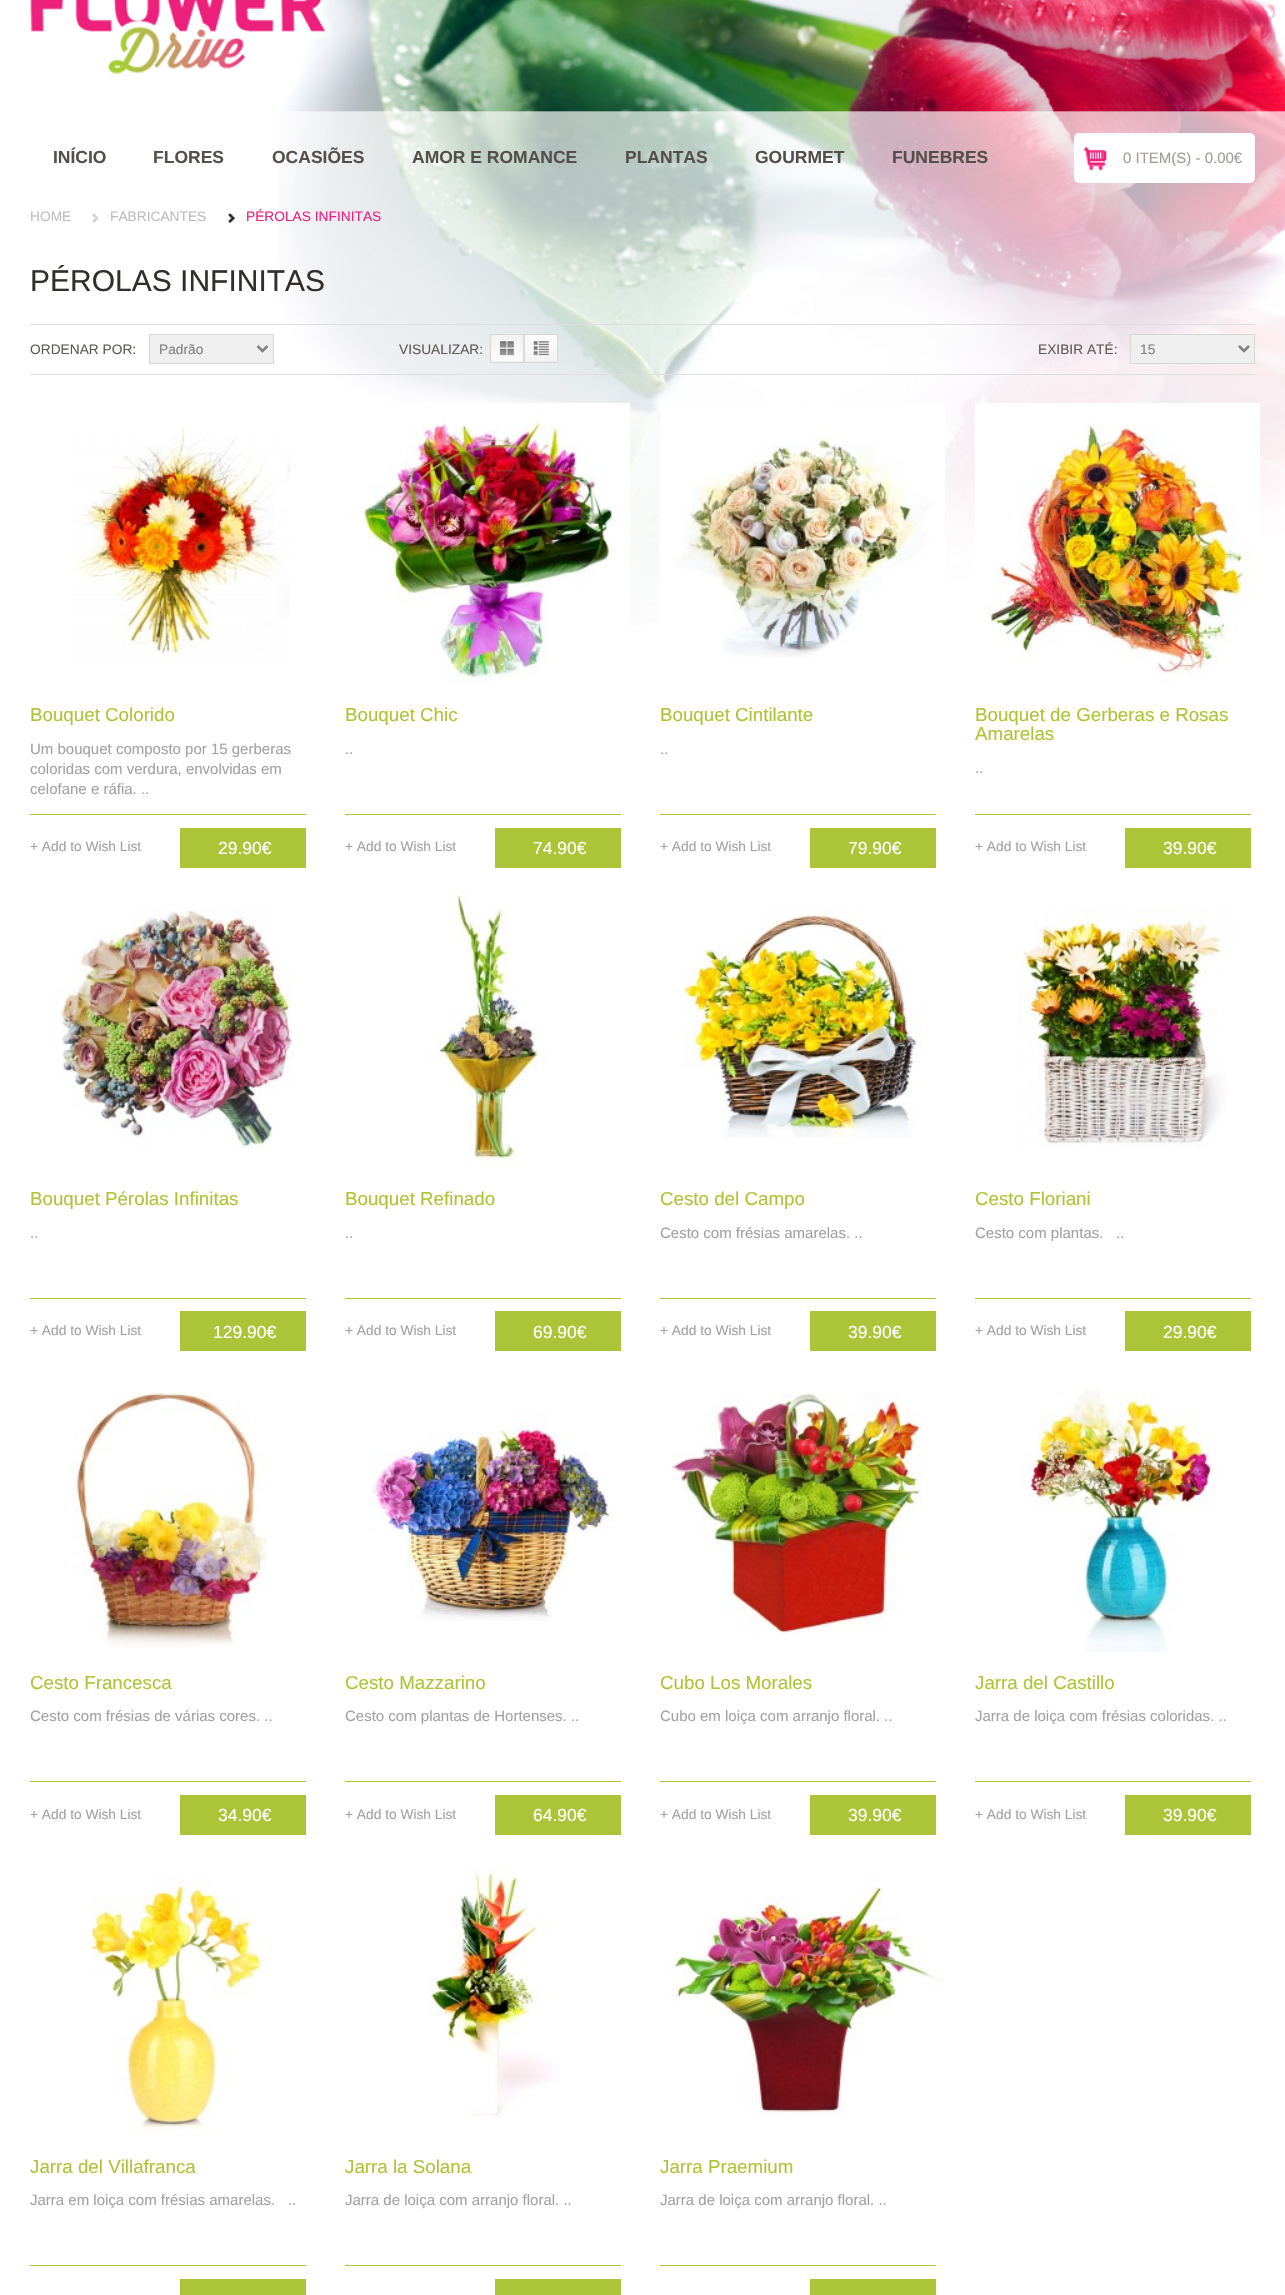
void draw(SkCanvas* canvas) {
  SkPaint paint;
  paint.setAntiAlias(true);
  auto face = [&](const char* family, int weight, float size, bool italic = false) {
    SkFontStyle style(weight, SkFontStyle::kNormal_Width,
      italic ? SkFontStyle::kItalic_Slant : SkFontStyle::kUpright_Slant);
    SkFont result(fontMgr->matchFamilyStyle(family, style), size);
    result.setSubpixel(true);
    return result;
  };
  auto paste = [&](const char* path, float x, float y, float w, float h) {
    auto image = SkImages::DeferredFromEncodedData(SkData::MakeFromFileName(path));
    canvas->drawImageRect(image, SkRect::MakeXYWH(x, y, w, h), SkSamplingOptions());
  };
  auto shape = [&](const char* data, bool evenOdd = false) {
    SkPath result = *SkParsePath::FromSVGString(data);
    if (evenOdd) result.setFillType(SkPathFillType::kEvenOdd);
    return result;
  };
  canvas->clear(0xffffffff);
  paste("img/1.png", 278, 0, 1007, 648);
  paste("img/2.png", 30, 0, 302, 74);
  paint.setColor(0xffffffff);
  canvas->drawRoundRect(SkRect::MakeXYWH(1074, 133, 181, 50), 5, 5, paint);
  paste("img/3.png", 1083, 147, 24, 24);
  paste("img/4.png", 92, 213, 7, 10);
  paste("img/5.png", 228, 213, 8, 10);
  paint.setColor(0xffdedede);
  canvas->drawRect(SkRect::MakeXYWH(30, 324, 1225, 1), paint);
  canvas->drawRect(SkRect::MakeXYWH(30, 374, 1225, 1), paint);
  paint.setColor(0xffefefef);
  canvas->drawRect(SkRect::MakeXYWH(149.5f, 334.5f, 124, 29), paint);
  paint.setStroke(true);
  paint.setStrokeWidth(1);
  paint.setColor(0xffd7d7d7);
  canvas->drawRect(SkRect::MakeXYWH(149.5f, 334.5f, 124, 29), paint);
  paint.setStrokeWidth(2.5f);
  paint.setColor(0xff818181);
  canvas->drawPath(shape("M257.5 346L262.5 351L267.5 346"), paint);
  paste("img/6.png", 491, 335, 32, 27);
  paint.setStrokeWidth(1);
  paint.setColor(0xffd7d7d7);
  canvas->drawRect(SkRect::MakeXYWH(490.5f, 334.5f, 33, 28), paint);
  paste("img/7.png", 523, 335, 34, 26);
  canvas->drawRect(SkRect::MakeXYWH(524.5f, 334.5f, 33, 28), paint);
  paint.setStroke(false);
  paint.setColor(0xffefefef);
  canvas->drawRect(SkRect::MakeXYWH(1130.5f, 334.5f, 124, 29), paint);
  paint.setStroke(true);
  paint.setColor(0xffd7d7d7);
  canvas->drawRect(SkRect::MakeXYWH(1130.5f, 334.5f, 124, 29), paint);
  paint.setStrokeWidth(2.5f);
  paint.setColor(0xff818181);
  canvas->drawPath(shape("M1239 346L1244 351L1249 346"), paint);
  paste("img/8.png", 72, 425, 218, 240);
  paint.setStroke(false);
  paint.setColor(0xffacc538);
  canvas->drawRect(SkRect::MakeXYWH(30, 814, 276, 1), paint);
  canvas->drawRect(SkRect::MakeXYWH(180, 828, 126, 40), paint);
  paint.setStroke(true);
  paint.setStrokeWidth(3);
  paint.setColor(0xffffffff);
  canvas->drawRect(SkRect::MakeXYWH(346.5f, 404.5f, 282, 282), paint);
  paste("img/9.png", 348, 405, 279, 280);
  paint.setStroke(false);
  paint.setColor(0xffacc538);
  canvas->drawRect(SkRect::MakeXYWH(345, 814, 276, 1), paint);
  canvas->drawRect(SkRect::MakeXYWH(495, 828, 126, 40), paint);
  paint.setStroke(true);
  paint.setColor(0xffffffff);
  canvas->drawRect(SkRect::MakeXYWH(661.5f, 404.5f, 282, 282), paint);
  paste("img/10.png", 663, 406, 279, 252);
  paint.setStroke(false);
  paint.setColor(0xffacc538);
  canvas->drawRect(SkRect::MakeXYWH(660, 814, 276, 1), paint);
  canvas->drawRect(SkRect::MakeXYWH(810, 828, 126, 40), paint);
  paint.setStroke(true);
  paint.setColor(0xffffffff);
  canvas->drawRect(SkRect::MakeXYWH(976.5f, 404.5f, 282, 282), paint);
  paste("img/11.png", 978, 406, 280, 279);
  paint.setStroke(false);
  paint.setColor(0xffacc538);
  canvas->drawRect(SkRect::MakeXYWH(975, 814, 276, 1), paint);
  canvas->drawRect(SkRect::MakeXYWH(1125, 828, 126, 40), paint);
  paste("img/12.png", 53, 909, 240, 240);
  canvas->drawRect(SkRect::MakeXYWH(30, 1298, 276, 1), paint);
  canvas->drawRect(SkRect::MakeXYWH(180, 1311, 126, 40), paint);
  paste("img/13.png", 428, 889, 120, 279);
  canvas->drawRect(SkRect::MakeXYWH(345, 1298, 276, 1), paint);
  canvas->drawRect(SkRect::MakeXYWH(495, 1311, 126, 40), paint);
  paste("img/14.png", 682, 909, 241, 230);
  canvas->drawRect(SkRect::MakeXYWH(660, 1298, 276, 1), paint);
  canvas->drawRect(SkRect::MakeXYWH(810, 1311, 126, 40), paint);
  paste("img/15.png", 1017, 908, 219, 241);
  canvas->drawRect(SkRect::MakeXYWH(975, 1298, 276, 1), paint);
  canvas->drawRect(SkRect::MakeXYWH(1125, 1311, 126, 40), paint);
  paste("img/16.png", 72, 1392, 196, 256);
  canvas->drawRect(SkRect::MakeXYWH(30, 1781, 276, 1), paint);
  canvas->drawRect(SkRect::MakeXYWH(180, 1795, 126, 40), paint);
  paste("img/17.png", 368, 1412, 247, 209);
  canvas->drawRect(SkRect::MakeXYWH(345, 1781, 276, 1), paint);
  canvas->drawRect(SkRect::MakeXYWH(495, 1795, 126, 40), paint);
  paste("img/18.png", 671, 1392, 252, 242);
  canvas->drawRect(SkRect::MakeXYWH(660, 1781, 276, 1), paint);
  canvas->drawRect(SkRect::MakeXYWH(810, 1795, 126, 40), paint);
  paste("img/19.png", 1019, 1386, 198, 267);
  canvas->drawRect(SkRect::MakeXYWH(975, 1781, 276, 1), paint);
  canvas->drawRect(SkRect::MakeXYWH(1125, 1795, 126, 40), paint);
  paste("img/20.png", 91, 1876, 181, 260);
  canvas->drawRect(SkRect::MakeXYWH(30, 2265, 276, 1), paint);
  canvas->drawRect(SkRect::MakeXYWH(180, 2279, 126, 16), paint);
  paste("img/21.png", 427, 1861, 133, 256);
  canvas->drawRect(SkRect::MakeXYWH(345, 2265, 276, 1), paint);
  canvas->drawRect(SkRect::MakeXYWH(495, 2279, 126, 16), paint);
  paste("img/22.png", 663, 1876, 280, 240);
  canvas->drawRect(SkRect::MakeXYWH(660, 2265, 276, 1), paint);
  canvas->drawRect(SkRect::MakeXYWH(810, 2279, 126, 16), paint);
  auto f0 = face("Liberation Sans", 700, 17.5f);
  paint.setColor(0xff544f4b);
  {
    const struct { const char* s; float x, y; } items[] = {
      {"INÍCIO", 53, 163},
      {"FLORES", 153, 163},
      {"OCASIÕES", 272, 163},
      {"AMOR E ROMANCE", 412, 163},
      {"PLANTAS", 625, 163},
      {"GOURMET", 755, 163},
      {"FUNEBRES", 892, 163},
    };
    for (auto [s, x, y] : items) {
      canvas->drawString(s, x, y, f0, paint);
    }
  }
  auto f1 = face("Liberation Sans", 400, 15);
  paint.setColor(0xffa29b95);
  canvas->drawString("0 ITEM(S) - 0.00€", 1123, 163, f1, paint);
  auto f2 = face("Liberation Sans", 400, 13.75f);
  paint.setColor(0xffbdbdbd);
  canvas->drawString("HOME", 30, 221, f2, paint);
  canvas->drawString("FABRICANTES", 110, 221, f2, paint);
  paint.setColor(0xffed217c);
  canvas->drawString("PÉROLAS INFINITAS", 246, 221, f2, paint);
  auto f3 = face("Liberation Sans", 400, 30);
  paint.setColor(0xff312e2b);
  canvas->drawString("PÉROLAS INFINITAS", 30, 291, f3, paint);
  paint.setColor(0xff5f5a56);
  canvas->drawString("ORDENAR POR:", 30, 354, f2, paint);
  paint.setColor(0xff818181);
  canvas->drawString("Padrão", 159, 354, f2, paint);
  paint.setColor(0xff5f5a56);
  canvas->drawString("VISUALIZAR:", 399, 354, f2, paint);
  canvas->drawString("EXIBIR ATÉ:", 1038, 354, f2, paint);
  paint.setColor(0xff818181);
  canvas->drawString("15", 1140, 354, f2, paint);
  auto f4 = face("Liberation Sans", 400, 18.75f);
  paint.setColor(0xffacc538);
  canvas->drawString("Bouquet Colorido", 30, 721, f4, paint);
  paint.setColor(0xffa2a2a2);
  {
    const struct { const char* s; float x, y; } items[] = {
      {"Um bouquet composto por 15 gerberas", 30, 754},
      {"coloridas com verdura, envolvidas em", 30, 774},
      {"celofane e ráfia. ..", 30, 794},
    };
    for (auto [s, x, y] : items) {
      canvas->drawString(s, x, y, f1, paint);
    }
  }
  canvas->drawString("+ Add to Wish List", 30, 851, f2, paint);
  auto f5 = face("Liberation Sans", 400, 17.5f);
  paint.setColor(0xffffffff);
  canvas->drawString("29.90€", 218, 854, f5, paint);
  paint.setColor(0xffacc538);
  canvas->drawString("Bouquet Chic", 345, 721, f4, paint);
  paint.setColor(0xffa2a2a2);
  canvas->drawString("..", 345, 754, f1, paint);
  canvas->drawString("+ Add to Wish List", 345, 851, f2, paint);
  paint.setColor(0xffffffff);
  canvas->drawString("74.90€", 533, 854, f5, paint);
  paint.setColor(0xffacc538);
  canvas->drawString("Bouquet Cintilante", 660, 721, f4, paint);
  paint.setColor(0xffa2a2a2);
  canvas->drawString("..", 660, 754, f1, paint);
  canvas->drawString("+ Add to Wish List", 660, 851, f2, paint);
  paint.setColor(0xffffffff);
  canvas->drawString("79.90€", 848, 854, f5, paint);
  paint.setColor(0xffacc538);
  canvas->drawString("Bouquet de Gerberas e Rosas", 975, 721, f4, paint);
  canvas->drawString("Amarelas", 975, 740, f4, paint);
  paint.setColor(0xffa2a2a2);
  canvas->drawString("..", 975, 773, f1, paint);
  canvas->drawString("+ Add to Wish List", 975, 851, f2, paint);
  paint.setColor(0xffffffff);
  canvas->drawString("39.90€", 1163, 854, f5, paint);
  paint.setColor(0xffacc538);
  canvas->drawString("Bouquet Pérolas Infinitas", 30, 1205, f4, paint);
  paint.setColor(0xffa2a2a2);
  canvas->drawString("..", 30, 1238, f1, paint);
  canvas->drawString("+ Add to Wish List", 30, 1335, f2, paint);
  paint.setColor(0xffffffff);
  canvas->drawString("129.90€", 213, 1338, f5, paint);
  paint.setColor(0xffacc538);
  canvas->drawString("Bouquet Refinado", 345, 1205, f4, paint);
  paint.setColor(0xffa2a2a2);
  canvas->drawString("..", 345, 1238, f1, paint);
  canvas->drawString("+ Add to Wish List", 345, 1335, f2, paint);
  paint.setColor(0xffffffff);
  canvas->drawString("69.90€", 533, 1338, f5, paint);
  paint.setColor(0xffacc538);
  canvas->drawString("Cesto del Campo", 660, 1205, f4, paint);
  paint.setColor(0xffa2a2a2);
  canvas->drawString("Cesto com frésias amarelas. ..", 660, 1238, f1, paint);
  canvas->drawString("+ Add to Wish List", 660, 1335, f2, paint);
  paint.setColor(0xffffffff);
  canvas->drawString("39.90€", 848, 1338, f5, paint);
  paint.setColor(0xffacc538);
  canvas->drawString("Cesto Floriani", 975, 1205, f4, paint);
  paint.setColor(0xffa2a2a2);
  canvas->drawString("Cesto com plantas.", 975, 1238, f1, paint);
  canvas->drawString("..", 1116, 1238, f1, paint);
  canvas->drawString("+ Add to Wish List", 975, 1335, f2, paint);
  paint.setColor(0xffffffff);
  canvas->drawString("29.90€", 1163, 1338, f5, paint);
  paint.setColor(0xffacc538);
  canvas->drawString("Cesto Francesca", 30, 1689, f4, paint);
  paint.setColor(0xffa2a2a2);
  canvas->drawString("Cesto com frésias de várias cores. ..", 30, 1721, f1, paint);
  canvas->drawString("+ Add to Wish List", 30, 1819, f2, paint);
  paint.setColor(0xffffffff);
  canvas->drawString("34.90€", 218, 1821, f5, paint);
  paint.setColor(0xffacc538);
  canvas->drawString("Cesto Mazzarino", 345, 1689, f4, paint);
  paint.setColor(0xffa2a2a2);
  canvas->drawString("Cesto com plantas de Hortenses. ..", 345, 1721, f1, paint);
  canvas->drawString("+ Add to Wish List", 345, 1819, f2, paint);
  paint.setColor(0xffffffff);
  canvas->drawString("64.90€", 533, 1821, f5, paint);
  paint.setColor(0xffacc538);
  canvas->drawString("Cubo Los Morales", 660, 1689, f4, paint);
  paint.setColor(0xffa2a2a2);
  canvas->drawString("Cubo em loiça com arranjo floral. ..", 660, 1721, f1, paint);
  canvas->drawString("+ Add to Wish List", 660, 1819, f2, paint);
  paint.setColor(0xffffffff);
  canvas->drawString("39.90€", 848, 1821, f5, paint);
  paint.setColor(0xffacc538);
  canvas->drawString("Jarra del Castillo", 975, 1689, f4, paint);
  paint.setColor(0xffa2a2a2);
  canvas->drawString("Jarra de loiça com frésias coloridas. ..", 975, 1721, f1, paint);
  canvas->drawString("+ Add to Wish List", 975, 1819, f2, paint);
  paint.setColor(0xffffffff);
  canvas->drawString("39.90€", 1163, 1821, f5, paint);
  paint.setColor(0xffacc538);
  canvas->drawString("Jarra del Villafranca", 30, 2173, f4, paint);
  paint.setColor(0xffa2a2a2);
  canvas->drawString("Jarra em loiça com frésias amarelas.", 30, 2205, f1, paint);
  canvas->drawString("..", 288, 2205, f1, paint);
  paint.setColor(0xffacc538);
  canvas->drawString("Jarra la Solana", 345, 2173, f4, paint);
  paint.setColor(0xffa2a2a2);
  canvas->drawString("Jarra de loiça com arranjo floral. ..", 345, 2205, f1, paint);
  paint.setColor(0xffacc538);
  canvas->drawString("Jarra Praemium", 660, 2173, f4, paint);
  paint.setColor(0xffa2a2a2);
  canvas->drawString("Jarra de loiça com arranjo floral. ..", 660, 2205, f1, paint);
}
